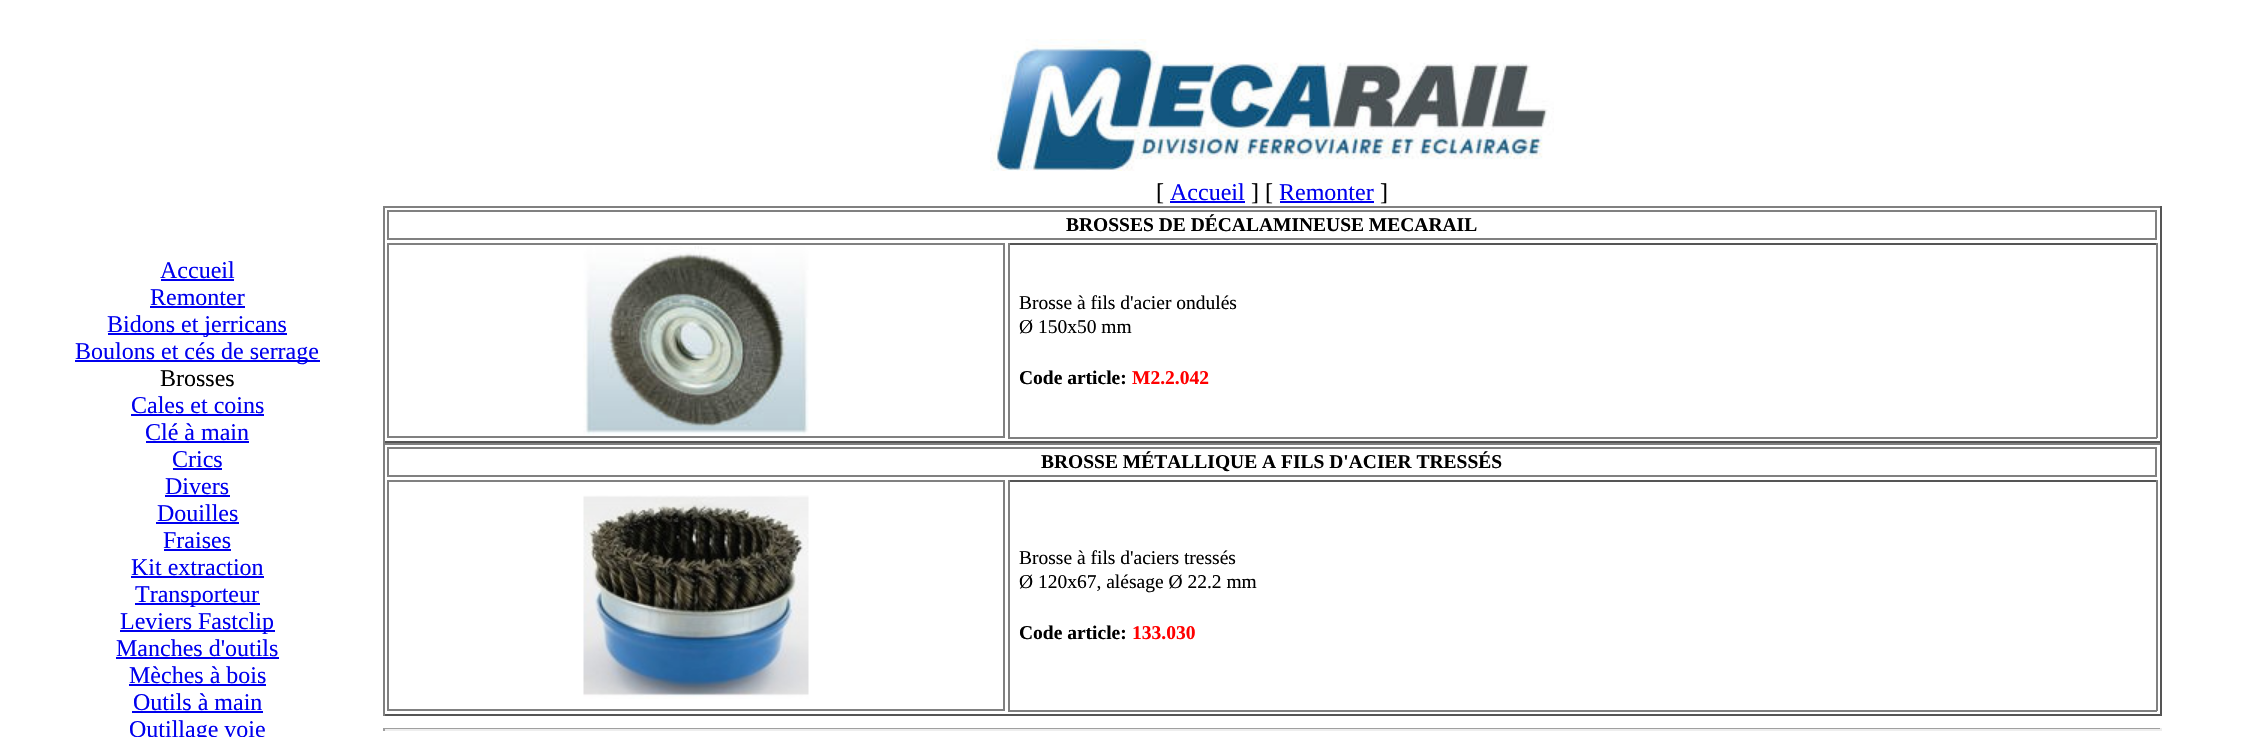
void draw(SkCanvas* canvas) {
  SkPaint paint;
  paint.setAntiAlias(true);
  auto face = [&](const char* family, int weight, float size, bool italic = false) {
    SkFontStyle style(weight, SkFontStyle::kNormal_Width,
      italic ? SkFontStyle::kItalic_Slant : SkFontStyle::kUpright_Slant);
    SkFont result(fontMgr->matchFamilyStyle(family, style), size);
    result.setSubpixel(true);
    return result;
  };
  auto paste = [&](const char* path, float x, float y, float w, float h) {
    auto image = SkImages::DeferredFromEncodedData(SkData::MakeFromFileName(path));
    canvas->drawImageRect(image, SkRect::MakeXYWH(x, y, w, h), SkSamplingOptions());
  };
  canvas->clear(0xffffffff);
  paste("img/1.png", 990, 39, 564, 132);
  {
    const struct { float x, y, w, h; SkColor color; } items[] = {
      {1170, 201, 75, 2, 0xff0000ee},
      {1280, 201, 94, 2, 0xff0000ee},
      {161, 279, 73, 2, 0xff0000ee},
      {150, 306, 95, 2, 0xff0000ee},
      {108, 333, 179, 2, 0xff0000ee},
      {75, 360, 245, 2, 0xff0000ee},
      {131, 414, 133, 2, 0xff0000ee},
      {146, 441, 103, 2, 0xff0000ee},
      {173, 468, 49, 2, 0xff0000ee},
      {165, 495, 65, 2, 0xff0000ee},
      {156, 522, 83, 2, 0xff0000ee},
      {164, 549, 67, 2, 0xff0000ee},
      {131, 576, 133, 2, 0xff0000ee},
      {135, 603, 125, 2, 0xff0000ee},
      {120, 630, 155, 2, 0xff0000ee},
      {116, 657, 163, 2, 0xff0000ee},
      {129, 684, 137, 2, 0xff0000ee},
      {132, 711, 131, 2, 0xff0000ee},
      {383, 206, 1779, 2, 0xff808080},
      {2160, 206, 2, 237, 0xff555555},
      {383, 441, 1779, 2, 0xff555555},
      {383, 206, 2, 237, 0xff808080},
    };
    for (auto [x, y, w, h, color] : items) {
      paint.setColor(color);
      canvas->drawRect(SkRect::MakeXYWH(x, y, w, h), paint);
    }
  }
  paint.setStroke(true);
  paint.setStrokeWidth(2);
  canvas->drawRect(SkRect::MakeXYWH(388, 211, 1768, 28), paint);
  canvas->drawRect(SkRect::MakeXYWH(388, 244, 616, 193), paint);
  paste("img/2.png", 583, 246, 226, 189);
  paint.setStroke(false);
  {
    const struct { float x, y, w, h; SkColor color; } items[] = {
      {1008, 243, 1149, 2, 0xff555555},
      {2156, 243, 2, 195, 0xff808080},
      {1008, 437, 1149, 2, 0xff808080},
      {1008, 243, 2, 195, 0xff808080},
      {383, 443, 1779, 2, 0xff808080},
      {2160, 443, 2, 273, 0xff555555},
      {383, 714, 1779, 2, 0xff555555},
      {383, 443, 2, 273, 0xff808080},
    };
    for (auto [x, y, w, h, color] : items) {
      paint.setColor(color);
      canvas->drawRect(SkRect::MakeXYWH(x, y, w, h), paint);
    }
  }
  paint.setStroke(true);
  canvas->drawRect(SkRect::MakeXYWH(388, 448, 1768, 28), paint);
  canvas->drawRect(SkRect::MakeXYWH(388, 481, 616, 229), paint);
  paste("img/3.png", 583, 495, 226, 204);
  paint.setStroke(false);
  {
    const struct { float x, y, w, h; SkColor color; } items[] = {
      {1008, 480, 1149, 2, 0xff555555},
      {2156, 480, 2, 231, 0xff808080},
      {1008, 710, 1149, 2, 0xff808080},
      {1008, 480, 2, 231, 0xff808080},
      {383, 728, 1779, 1, 0xff9f9f9f},
      {2160, 728, 2, 3, 0xffeeeeee},
      {383, 729, 1779, 2, 0xffeeeeee},
      {383, 728, 2, 3, 0xff9f9f9f},
    };
    for (auto [x, y, w, h, color] : items) {
      paint.setColor(color);
      canvas->drawRect(SkRect::MakeXYWH(x, y, w, h), paint);
    }
  }
  auto f0 = face("Liberation Serif", 400, 24);
  paint.setColor(0xff000000);
  canvas->drawString("[", 1156, 200, f0, paint);
  paint.setColor(0xff0000ee);
  canvas->drawString("Accueil", 1170, 200, f0, paint);
  paint.setColor(0xff000000);
  canvas->drawString("] [", 1251, 200, f0, paint);
  paint.setColor(0xff0000ee);
  canvas->drawString("Remonter", 1279, 200, f0, paint);
  paint.setColor(0xff000000);
  canvas->drawString("]", 1380, 200, f0, paint);
  paint.setColor(0xff0000ee);
  {
    const struct { const char* s; float x, y; } items[] = {
      {"Accueil", 160, 278},
      {"Remonter", 150, 305},
      {"Bidons et jerricans", 107, 332},
      {"Boulons et cés de serrage", 75, 359},
    };
    for (auto [s, x, y] : items) {
      canvas->drawString(s, x, y, f0, paint);
    }
  }
  paint.setColor(0xff000000);
  canvas->drawString("Brosses", 160, 386, f0, paint);
  paint.setColor(0xff0000ee);
  {
    const struct { const char* s; float x, y; } items[] = {
      {"Cales et coins", 131, 413},
      {"Clé à main", 145, 440},
      {"Crics", 172, 467},
      {"Divers", 165, 494},
      {"Douilles", 157, 521},
      {"Fraises", 163, 548},
      {"Kit extraction", 131, 575},
      {"Transporteur", 135, 602},
      {"Leviers Fastclip", 120, 629},
      {"Manches d'outils", 116, 656},
      {"Mèches à bois", 129, 683},
      {"Outils à main", 133, 710},
      {"Outillage voie", 129, 737},
    };
    for (auto [s, x, y] : items) {
      canvas->drawString(s, x, y, f0, paint);
    }
  }
  auto f1 = face("Liberation Serif", 700, 19.5f);
  paint.setColor(0xff000000);
  canvas->drawString("BROSSES DE DÉCALAMINEUSE MECARAIL", 1066, 231, f1, paint);
  auto f2 = face("Liberation Serif", 400, 19.5f);
  canvas->drawString("Brosse à fils d'acier ondulés", 1019, 309, f2, paint);
  canvas->drawString("Ø 150x50 mm", 1019, 333, f2, paint);
  canvas->drawString("Code article:", 1019, 384, f1, paint);
  paint.setColor(0xffff0000);
  canvas->drawString("M2.2.042", 1132, 384, f1, paint);
  paint.setColor(0xff000000);
  canvas->drawString("BROSSE MÉTALLIQUE A FILS D'ACIER TRESSÉS", 1041, 468, f1, paint);
  canvas->drawString("Brosse à fils d'aciers tressés", 1019, 564, f2, paint);
  canvas->drawString("Ø 120x67, alésage Ø 22.2 mm", 1019, 588, f2, paint);
  canvas->drawString("Code article:", 1019, 639, f1, paint);
  paint.setColor(0xffff0000);
  canvas->drawString("133.030", 1132, 639, f1, paint);
}
